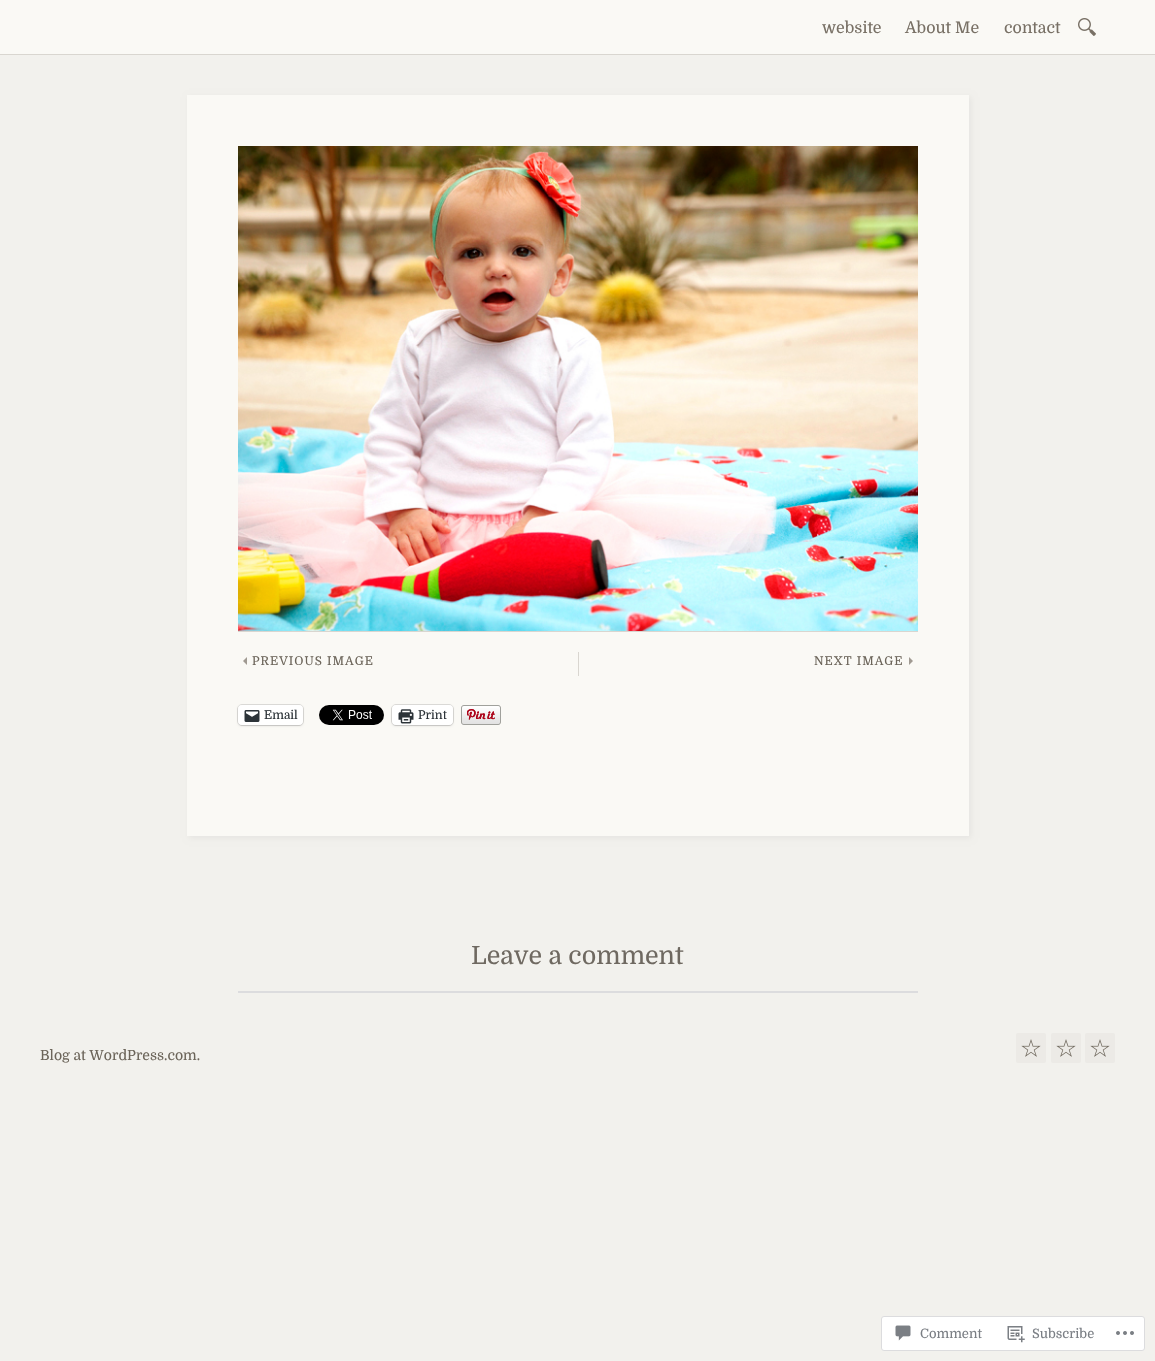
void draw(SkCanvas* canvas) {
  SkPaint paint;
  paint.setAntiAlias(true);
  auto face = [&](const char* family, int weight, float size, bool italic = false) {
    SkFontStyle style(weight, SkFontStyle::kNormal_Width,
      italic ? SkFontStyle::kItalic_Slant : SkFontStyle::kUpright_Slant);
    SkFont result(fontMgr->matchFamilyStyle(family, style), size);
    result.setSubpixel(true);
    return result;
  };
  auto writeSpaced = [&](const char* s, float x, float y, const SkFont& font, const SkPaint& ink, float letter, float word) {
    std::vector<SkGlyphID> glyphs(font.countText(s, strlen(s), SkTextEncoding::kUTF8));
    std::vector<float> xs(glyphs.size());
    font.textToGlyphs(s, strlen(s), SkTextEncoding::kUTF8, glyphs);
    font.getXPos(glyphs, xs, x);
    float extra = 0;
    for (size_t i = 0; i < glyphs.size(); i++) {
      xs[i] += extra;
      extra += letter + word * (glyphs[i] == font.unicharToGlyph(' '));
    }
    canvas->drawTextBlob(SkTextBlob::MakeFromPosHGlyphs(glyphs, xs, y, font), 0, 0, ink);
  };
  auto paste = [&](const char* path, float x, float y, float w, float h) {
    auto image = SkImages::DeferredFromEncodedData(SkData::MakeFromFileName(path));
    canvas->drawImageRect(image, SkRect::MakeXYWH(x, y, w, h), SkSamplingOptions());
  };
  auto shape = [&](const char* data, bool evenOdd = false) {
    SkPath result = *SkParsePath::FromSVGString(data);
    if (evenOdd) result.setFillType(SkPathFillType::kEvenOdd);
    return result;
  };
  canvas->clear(0xfff2f1ed);
  paint.setColor(0xfffaf9f5);
  canvas->drawRect(SkRect::MakeXYWH(0, 0, 1155, 54), paint);
  paint.setColor(0xffd9d6d0);
  canvas->drawRect(SkRect::MakeXYWH(0, 54, 1155, 1), paint);
  paste("img/1.png", 1078, 18, 18, 18);
  paint.setColor(0x0d000000);
  paint.setMaskFilter(SkMaskFilter::MakeBlur(kNormal_SkBlurStyle, 3));
  canvas->drawRect(SkRect::MakeXYWH(189, 97, 782, 741), paint);
  paint.setMaskFilter(nullptr);
  paint.setColor(0xfffaf9f5);
  canvas->drawRect(SkRect::MakeXYWH(187, 95, 782, 741), paint);
  paste("img/2.png", 238, 146, 680, 485);
  paint.setColor(0xffd9d6d0);
  canvas->drawRect(SkRect::MakeXYWH(238, 631, 680, 1), paint);
  paint.setColor(0xffa09a92);
  canvas->drawPath(shape("M247 657V665L243 661Z"), paint);
  paint.setColor(0xffd9d6d0);
  canvas->drawRect(SkRect::MakeXYWH(578, 652, 1, 24), paint);
  paint.setColor(0xffa09a92);
  canvas->drawPath(shape("M909 665V657L913 661Z"), paint);
  paint.setStroke(true);
  paint.setStrokeWidth(1);
  paint.setColor(0xffdcdbd8);
  canvas->drawRoundRect(SkRect::MakeXYWH(237.5f, 704.5f, 66, 21), 4.5f, 4.5f, paint);
  paint.setStroke(false);
  paint.setColor(0x1f000000);
  paint.setMaskFilter(SkMaskFilter::MakeBlur(kNormal_SkBlurStyle, 1));
  canvas->drawRoundRect(SkRect::MakeXYWH(238, 706, 65, 20), 4, 4, paint);
  paint.setMaskFilter(nullptr);
  paint.setColor(0xffffffff);
  canvas->drawRoundRect(SkRect::MakeXYWH(238, 705, 65, 20), 4, 4, paint);
  paste("img/3.png", 244, 710, 16, 12);
  paste("img/4.png", 319, 705, 65, 20);
  paint.setStroke(true);
  paint.setColor(0xffdcdbd8);
  canvas->drawRoundRect(SkRect::MakeXYWH(391.5f, 704.5f, 62, 21), 4.5f, 4.5f, paint);
  paint.setStroke(false);
  paint.setColor(0x1f000000);
  paint.setMaskFilter(SkMaskFilter::MakeBlur(kNormal_SkBlurStyle, 1));
  canvas->drawRoundRect(SkRect::MakeXYWH(392, 706, 61, 20), 4, 4, paint);
  paint.setMaskFilter(nullptr);
  paint.setColor(0xffffffff);
  canvas->drawRoundRect(SkRect::MakeXYWH(392, 705, 61, 20), 4, 4, paint);
  paste("img/5.png", 398, 709, 16, 15);
  paste("img/6.png", 461, 705, 40, 20);
  paint.setColor(0xffdcdcde);
  canvas->drawRect(SkRect::MakeXYWH(238, 991, 680, 2), paint);
  paint.setColor(0xffeceae6);
  canvas->drawRoundRect(SkRect::MakeXYWH(1016, 1033, 30, 30), 2, 2, paint);
  paste("img/7.png", 1021, 1039, 20, 18);
  canvas->drawRoundRect(SkRect::MakeXYWH(1051, 1033, 30, 30), 2, 2, paint);
  paste("img/7.png", 1056, 1039, 20, 18);
  canvas->drawRoundRect(SkRect::MakeXYWH(1085, 1033, 30, 30), 2, 2, paint);
  paste("img/7.png", 1090, 1039, 20, 18);
  paint.setColor(0xffffffff);
  canvas->drawRoundRect(SkRect::MakeXYWH(881.5f, 1316.5f, 263, 34), 2.5f, 2.5f, paint);
  paint.setStroke(true);
  paint.setColor(0xffdcdcde);
  canvas->drawRoundRect(SkRect::MakeXYWH(881.5f, 1316.5f, 263, 34), 2.5f, 2.5f, paint);
  paste("img/8.png", 895, 1325, 16, 16);
  paste("img/9.png", 1007, 1326, 18, 17);
  paste("img/10.png", 1116, 1331, 18, 4);
  auto f0 = face("Domine", 400, 16);
  paint.setStroke(false);
  paint.setColor(0xff787065);
  {
    const struct { const char* s; float x, y; } items[] = {
      {"website", 822, 33},
      {"About Me", 905, 33},
      {"contact", 1004, 33},
    };
    for (auto [s, x, y] : items) {
      canvas->drawString(s, x, y, f0, paint);
    }
  }
  auto f1 = face("Domine", 400, 12);
  paint.setColor(0xff6c655a);
  writeSpaced("PREVIOUS IMAGE", 252, 665, f1, paint, 1, 0);
  writeSpaced("NEXT IMAGE", 814, 665, f1, paint, 1, 0);
  paint.setColor(0xff2c3338);
  canvas->drawString("Email", 264, 719, f1, paint);
  canvas->drawString("Print", 418, 719, f1, paint);
  auto f2 = face("Domine", 400, 25);
  paint.setColor(0xff6f6961);
  canvas->drawString("Leave a comment", 471, 964, f2, paint);
  auto f3 = face("Domine", 400, 14);
  paint.setColor(0xff6c655a);
  canvas->drawString("Blog at WordPress.com.", 40, 1060, f3, paint);
  auto f4 = face("Domine", 400, 13);
  paint.setColor(0xff7a7e84);
  canvas->drawString("Comment", 920, 1338, f4, paint);
  canvas->drawString("Subscribe", 1032, 1338, f4, paint);
}
